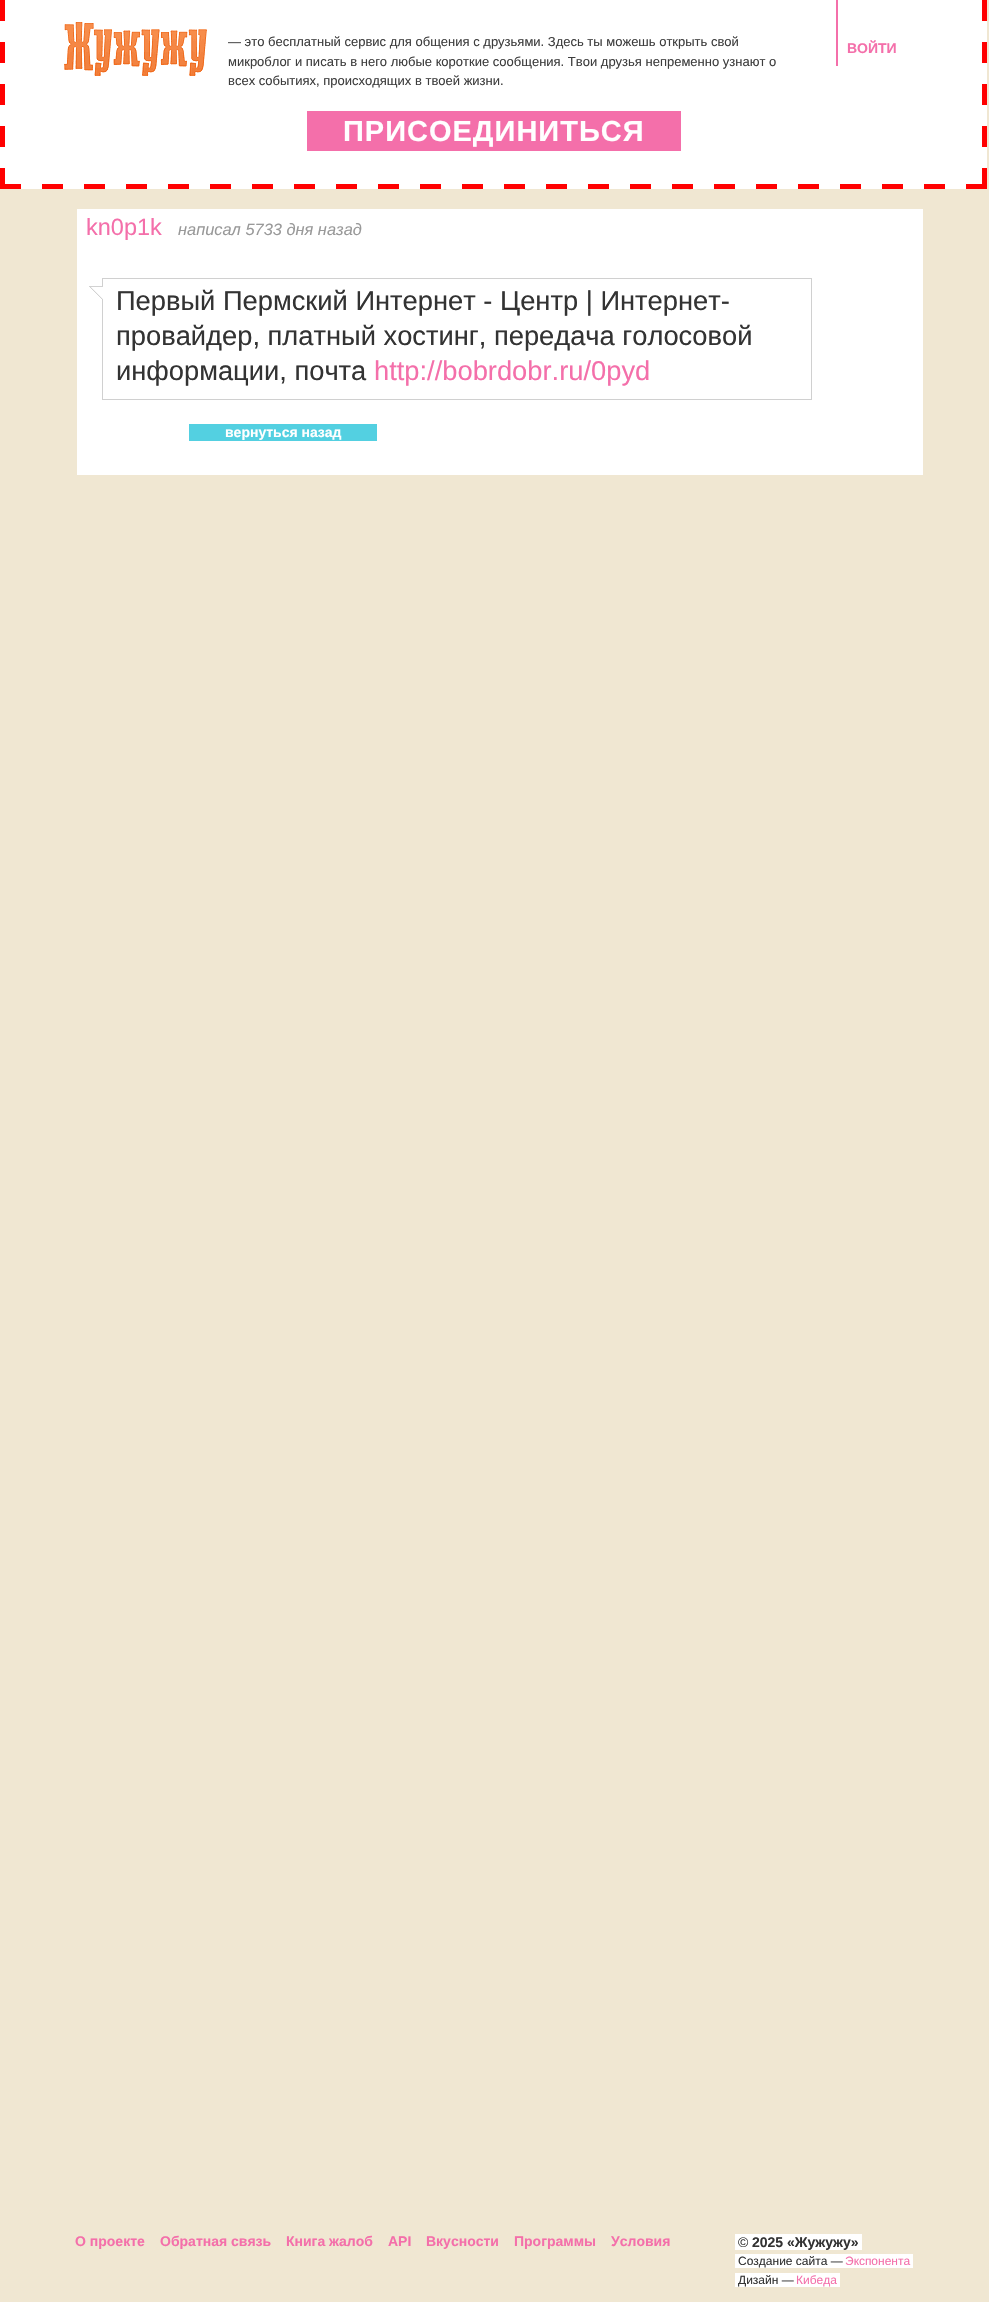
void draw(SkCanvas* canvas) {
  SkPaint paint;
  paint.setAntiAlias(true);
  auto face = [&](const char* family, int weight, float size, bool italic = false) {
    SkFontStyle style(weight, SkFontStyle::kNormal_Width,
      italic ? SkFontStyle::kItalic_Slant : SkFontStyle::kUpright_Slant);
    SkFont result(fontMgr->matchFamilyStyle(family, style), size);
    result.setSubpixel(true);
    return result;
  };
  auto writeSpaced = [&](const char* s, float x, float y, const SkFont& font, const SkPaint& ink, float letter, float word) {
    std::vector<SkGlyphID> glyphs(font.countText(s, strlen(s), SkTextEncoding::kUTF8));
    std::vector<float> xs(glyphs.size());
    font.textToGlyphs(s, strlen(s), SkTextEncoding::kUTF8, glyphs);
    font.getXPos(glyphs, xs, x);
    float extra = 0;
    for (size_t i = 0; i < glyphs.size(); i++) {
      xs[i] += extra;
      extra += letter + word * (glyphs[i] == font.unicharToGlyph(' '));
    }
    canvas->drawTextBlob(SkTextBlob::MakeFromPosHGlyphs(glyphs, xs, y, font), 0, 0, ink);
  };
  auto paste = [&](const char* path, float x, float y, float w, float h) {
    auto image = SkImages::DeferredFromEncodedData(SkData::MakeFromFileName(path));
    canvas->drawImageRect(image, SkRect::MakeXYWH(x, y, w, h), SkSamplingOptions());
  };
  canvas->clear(0xfff0e7d2);
  paste("img/1.png", 0, 0, 987, 189);
  paste("img/2.png", 64, 22, 143, 54);
  {
    const struct { float x, y, w, h; SkColor color; } items[] = {
      {836, 0, 2, 66, 0xfff46faa},
      {307, 111, 374, 40, 0xfff46faa},
      {77, 209, 846, 266, 0xffffffff},
    };
    for (auto [x, y, w, h, color] : items) {
      paint.setColor(color);
      canvas->drawRect(SkRect::MakeXYWH(x, y, w, h), paint);
    }
  }
  paint.setStroke(true);
  paint.setStrokeWidth(1);
  paint.setColor(0xffd0d0d0);
  canvas->drawRect(SkRect::MakeXYWH(102.5f, 278.5f, 709, 121), paint);
  paste("img/3.png", 89, 286, 14, 13);
  paint.setStroke(false);
  {
    const struct { float x, y, w, h; SkColor color; } items[] = {
      {189, 424, 188, 17, 0xff53d0e1},
      {735, 2234, 127, 16, 0xffffffff},
      {735, 2254, 178, 14, 0xffffffff},
      {735, 2273, 105, 14, 0xffffffff},
    };
    for (auto [x, y, w, h, color] : items) {
      paint.setColor(color);
      canvas->drawRect(SkRect::MakeXYWH(x, y, w, h), paint);
    }
  }
  auto f0 = face("Liberation Sans", 400, 13);
  paint.setColor(0xff3e3e3e);
  {
    const struct { const char* s; float x, y; } items[] = {
      {"— это бесплатный сервис для общения с друзьями. Здесь ты можешь открыть свой", 228, 46},
      {"микроблог и писать в него любые короткие сообщения. Твои друзья непременно узнают о", 228, 66},
      {"всех событиях, происходящих в твоей жизни.", 228, 85},
    };
    for (auto [s, x, y] : items) {
      canvas->drawString(s, x, y, f0, paint);
    }
  }
  auto f1 = face("Liberation Sans", 700, 14);
  paint.setColor(0xfff46faa);
  canvas->drawString("ВОЙТИ", 847, 53, f1, paint);
  auto f2 = face("Liberation Sans", 700, 29);
  paint.setColor(0xffffffff);
  writeSpaced("ПРИСОЕДИНИТЬСЯ", 343, 141, f2, paint, 1, 0);
  auto f3 = face("Liberation Sans", 400, 23.5f);
  paint.setColor(0xfff46faa);
  canvas->drawString("kn0p1k", 86, 235, f3, paint);
  auto f4 = face("Liberation Sans", 400, 16.4f, true);
  paint.setColor(0xff999999);
  canvas->drawString("написал 5733 дня назад", 178, 235, f4, paint);
  auto f5 = face("Liberation Sans", 400, 27.3f);
  paint.setColor(0xff333333);
  {
    const struct { const char* s; float x, y; } items[] = {
      {"Первый Пермский Интернет - Центр | Интернет-", 116, 310},
      {"провайдер, платный хостинг, передача голосовой", 116, 345},
      {"информации, почта", 116, 380},
    };
    for (auto [s, x, y] : items) {
      canvas->drawString(s, x, y, f5, paint);
    }
  }
  paint.setColor(0xfff46faa);
  canvas->drawString("http://bobrdobr.ru/0pyd", 374, 380, f5, paint);
  paint.setColor(0xffffffff);
  canvas->drawString("вернуться назад", 225, 437, f1, paint);
  paint.setColor(0xfff46faa);
  {
    const struct { const char* s; float x, y; } items[] = {
      {"О проекте", 75, 2246},
      {"Обратная связь", 160, 2246},
      {"Книга жалоб", 286, 2246},
      {"API", 388, 2246},
      {"Вкусности", 426, 2246},
      {"Программы", 514, 2246},
      {"Условия", 611, 2246},
    };
    for (auto [s, x, y] : items) {
      canvas->drawString(s, x, y, f1, paint);
    }
  }
  auto f6 = face("Liberation Sans", 400, 14);
  paint.setColor(0xff333333);
  canvas->drawString("©", 738, 2247, f6, paint);
  canvas->drawString("2025 «Жужужу»", 752, 2247, f1, paint);
  auto f7 = face("Liberation Sans", 400, 12);
  canvas->drawString("Cоздание сайта —", 738, 2265, f7, paint);
  paint.setColor(0xfff46faa);
  canvas->drawString("Экспонента", 845, 2265, f7, paint);
  paint.setColor(0xff333333);
  canvas->drawString("Дизайн —", 738, 2284, f7, paint);
  paint.setColor(0xfff46faa);
  canvas->drawString("Кибеда", 796, 2284, f7, paint);
}
